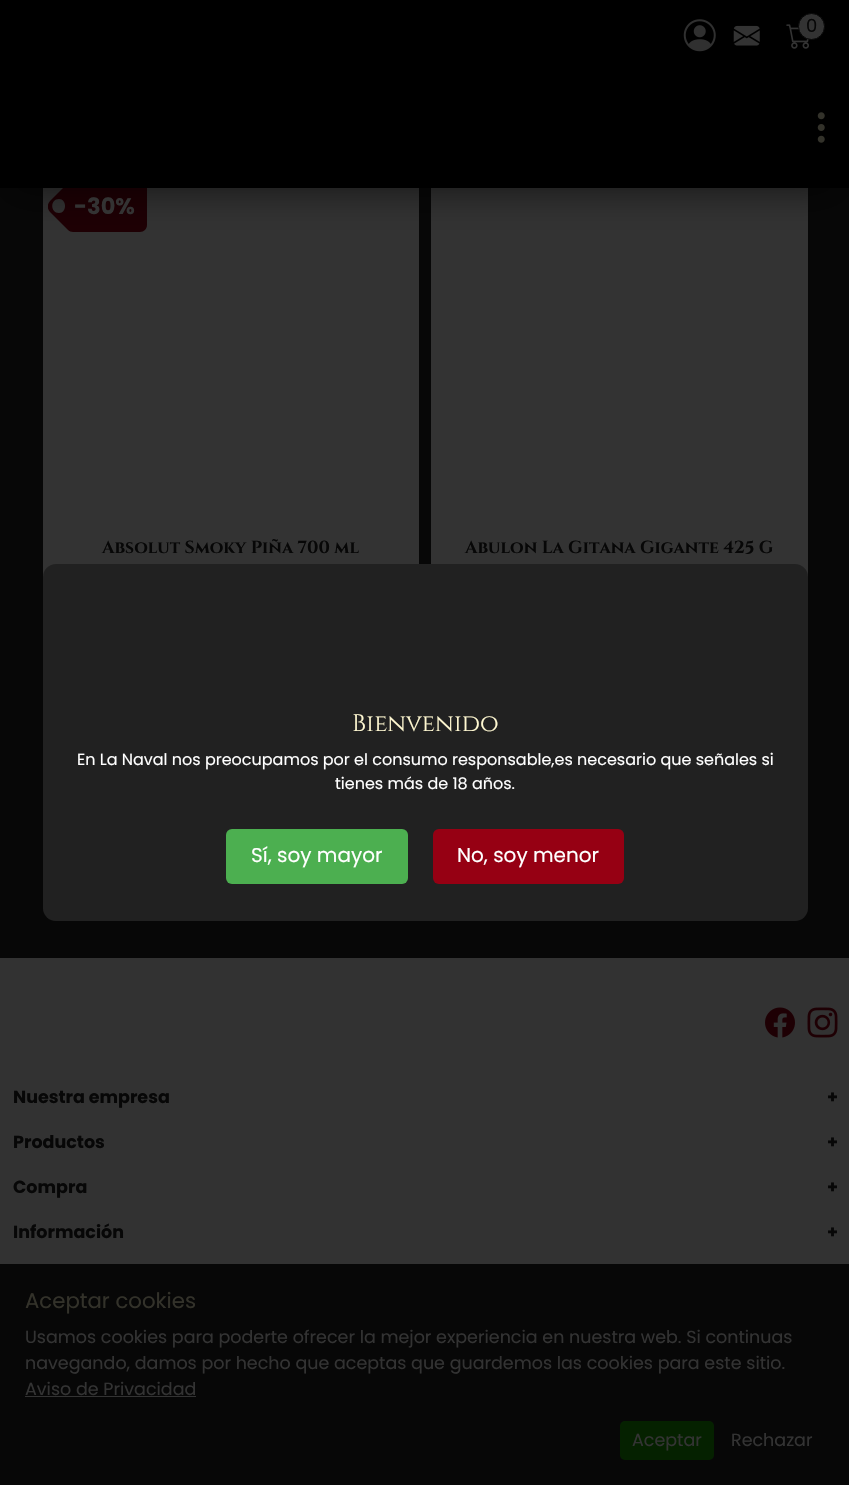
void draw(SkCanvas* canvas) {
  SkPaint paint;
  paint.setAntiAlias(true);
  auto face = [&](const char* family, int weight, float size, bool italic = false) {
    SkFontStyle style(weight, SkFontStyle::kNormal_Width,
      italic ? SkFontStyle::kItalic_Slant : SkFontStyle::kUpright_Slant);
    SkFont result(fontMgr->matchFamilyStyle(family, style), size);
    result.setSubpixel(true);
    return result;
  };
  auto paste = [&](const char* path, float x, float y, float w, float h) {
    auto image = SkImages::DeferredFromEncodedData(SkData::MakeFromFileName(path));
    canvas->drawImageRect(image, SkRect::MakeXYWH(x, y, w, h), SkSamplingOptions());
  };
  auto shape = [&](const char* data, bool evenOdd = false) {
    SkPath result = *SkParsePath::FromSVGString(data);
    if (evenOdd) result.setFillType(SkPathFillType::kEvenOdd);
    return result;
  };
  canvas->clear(0xff070707);
  paint.setColor(0xff333333);
  canvas->drawRect(SkRect::MakeXYWH(43, 188, 376, 389), paint);
  canvas->save();
  canvas->clipRect(SkRect::MakeXYWH(48, 180, 100, 53));
  paint.setColor(0xff1e0004);
  canvas->drawPath(shape("M147 188C147 184 144 181 140 181H73C71 181 69 181 68 183L50 201C47 204 47 209 50 212L68 230C69 231 71 232 73 232H140C144 232 147 229 147 225ZM59 213C50 213 50 199 59 199C67 199 67 213 59 213Z"), paint);
  canvas->restore();
  paint.setColor(0xff333333);
  canvas->drawRect(SkRect::MakeXYWH(431, 188, 377, 389), paint);
  paint.setColor(0x91000000);
  paint.setMaskFilter(SkMaskFilter::MakeBlur(kNormal_SkBlurStyle, 18));
  canvas->drawRect(SkRect::MakeXYWH(9, 24, 830, 167), paint);
  paint.setMaskFilter(nullptr);
  paint.setColor(0xff000000);
  canvas->drawRect(SkRect::MakeXYWH(0, 0, 849, 188), paint);
  paste("img/1.png", 683, 19, 33, 33);
  paste("img/2.png", 733, 25, 27, 21);
  paste("img/3.png", 786, 24, 23, 25);
  paint.setColor(0xff333333);
  canvas->drawCircle(811.5f, 26.5f, 13, paint);
  paint.setStroke(true);
  paint.setStrokeWidth(1);
  paint.setColor(0xff070707);
  canvas->drawCircle(811.5f, 26.5f, 13, paint);
  paste("img/4.png", 817, 112, 8, 31);
  paint.setStroke(false);
  paint.setColor(0xff323232);
  canvas->drawRect(SkRect::MakeXYWH(0, 958, 849, 306), paint);
  paste("img/5.png", 765, 1007, 30, 31);
  paste("img/6.png", 807, 1007, 31, 31);
  paint.setColor(0xff212121);
  canvas->drawRoundRect(SkRect::MakeXYWH(43, 564, 765, 357), 13, 13, paint);
  paint.setColor(0xff4caf50);
  canvas->drawRoundRect(SkRect::MakeXYWH(226, 829, 182, 55), 6, 6, paint);
  paint.setColor(0xff960013);
  canvas->drawRoundRect(SkRect::MakeXYWH(433, 829, 191, 55), 6, 6, paint);
  paint.setColor(0xff333333);
  canvas->drawRect(SkRect::MakeXYWH(25, 1396, 171, 1), paint);
  paint.setColor(0xff052100);
  canvas->drawRoundRect(SkRect::MakeXYWH(620, 1421, 94, 39), 5, 5, paint);
  auto f0 = face("Poppins", 400, 18);
  paint.setColor(0xff070707);
  canvas->drawString("0", 806, 32, f0, paint);
  auto f1 = face("Poppins", 700, 22.5f);
  paint.setColor(0xff333333);
  canvas->drawString("-30%", 74, 214, f1, paint);
  auto f2 = face("Cinzel", 700, 17.5f);
  paint.setColor(0xff070707);
  canvas->drawString("Absolut Smoky Piña 700 ml", 102, 553, f2, paint);
  canvas->drawString("Abulon La Gitana Gigante 425 G", 465, 553, f2, paint);
  auto f3 = face("Poppins", 700, 17.5f);
  {
    const struct { const char* s; float x, y; } items[] = {
      {"Nuestra empresa", 13, 1103},
      {"+", 827, 1103},
      {"Productos", 13, 1148},
      {"+", 827, 1148},
      {"Compra", 13, 1193},
      {"+", 827, 1193},
      {"Información", 13, 1238},
      {"+", 827, 1238},
    };
    for (auto [s, x, y] : items) {
      canvas->drawString(s, x, y, f3, paint);
    }
  }
  auto f4 = face("Cinzel", 400, 24);
  paint.setColor(0xfffff8d1);
  canvas->drawString("Bienvenido", 352, 731, f4, paint);
  auto f5 = face("Poppins", 400, 16);
  paint.setColor(0xffffffff);
  canvas->drawString("En La Naval nos preocupamos por el consumo responsable,es necesario que señales si", 77, 765, f5, paint);
  canvas->drawString("tienes más de 18 años.", 335, 789, f5, paint);
  auto f6 = face("Poppins", 400, 20);
  canvas->drawString("Sí, soy mayor", 251, 862, f6, paint);
  canvas->drawString("No, soy menor", 457, 862, f6, paint);
  auto f7 = face("Poppins", 400, 21.25f);
  paint.setColor(0xff33322a);
  canvas->drawString("Aceptar cookies", 25, 1308, f7, paint);
  auto f8 = face("Poppins", 400, 17.5f);
  paint.setColor(0xff333333);
  {
    const struct { const char* s; float x, y; } items[] = {
      {"Usamos cookies para poderte ofrecer la mejor experiencia en nuestra web. Si continuas", 25, 1343},
      {"navegando, damos por hecho que aceptas que guardemos las cookies para este sitio.", 25, 1369},
      {"Aviso de Privacidad", 25, 1395},
      {"Aceptar", 632, 1446},
      {"Rechazar", 731, 1446},
    };
    for (auto [s, x, y] : items) {
      canvas->drawString(s, x, y, f8, paint);
    }
  }
}
